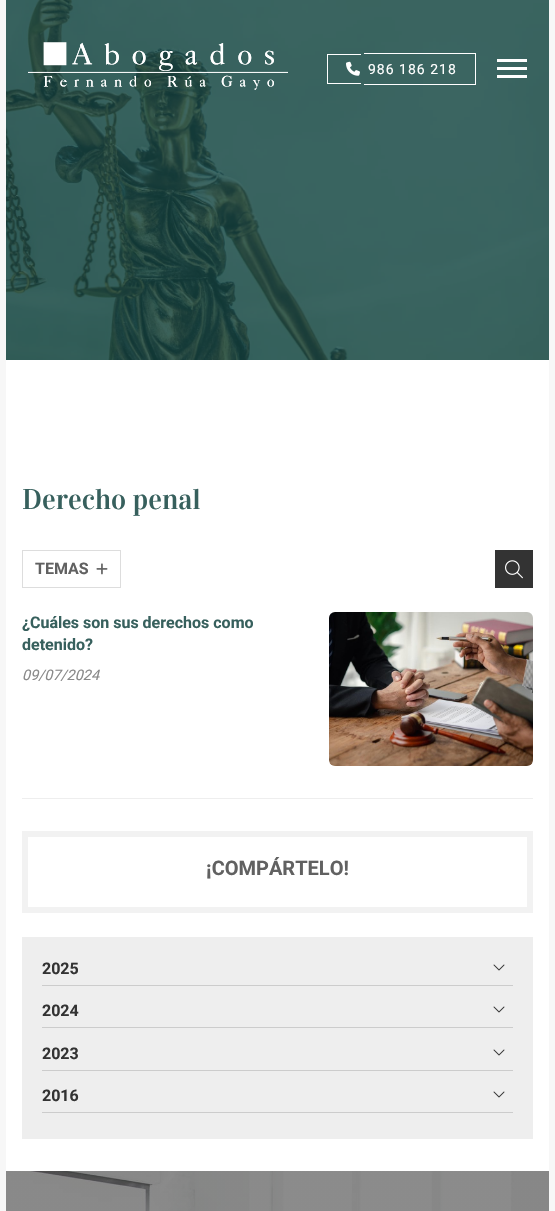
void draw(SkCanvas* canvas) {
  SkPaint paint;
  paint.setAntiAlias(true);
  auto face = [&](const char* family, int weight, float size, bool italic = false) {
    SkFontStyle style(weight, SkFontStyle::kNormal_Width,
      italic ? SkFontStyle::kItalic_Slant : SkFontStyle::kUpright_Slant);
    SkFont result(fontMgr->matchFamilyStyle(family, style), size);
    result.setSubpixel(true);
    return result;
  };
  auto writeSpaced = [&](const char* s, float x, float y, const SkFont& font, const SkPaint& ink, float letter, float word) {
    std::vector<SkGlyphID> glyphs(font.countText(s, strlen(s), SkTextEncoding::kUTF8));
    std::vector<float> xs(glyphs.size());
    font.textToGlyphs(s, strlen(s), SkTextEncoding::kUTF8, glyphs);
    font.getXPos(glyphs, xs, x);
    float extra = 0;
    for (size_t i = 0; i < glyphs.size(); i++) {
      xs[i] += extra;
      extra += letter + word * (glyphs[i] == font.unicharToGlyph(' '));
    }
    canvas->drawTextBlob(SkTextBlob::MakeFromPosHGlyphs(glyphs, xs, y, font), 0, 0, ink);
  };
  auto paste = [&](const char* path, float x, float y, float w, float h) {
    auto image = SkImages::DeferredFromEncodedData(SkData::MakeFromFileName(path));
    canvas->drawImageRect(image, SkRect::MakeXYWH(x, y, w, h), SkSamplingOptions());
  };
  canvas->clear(0xfff7f7f7);
  paint.setColor(0xffffffff);
  canvas->drawRect(SkRect::MakeXYWH(6, 360, 543, 811), paint);
  paste("img/1.png", 6, 0, 543, 360);
  paste("img/2.png", 28, 42, 260, 48);
  {
    const struct { float x, y, w, h; SkColor color; } items[] = {
      {327, 54, 34, 1, 0xffffffff},
      {327, 83, 34, 1, 0xffffffff},
      {327, 54, 1, 30, 0xffffffff},
      {364, 53, 112, 1, 0xffffffff},
      {364, 84, 4, 1, 0xffffffff},
      {475, 53, 1, 32, 0xffffffff},
      {368, 84, 108, 1, 0xffffffff},
    };
    for (auto [x, y, w, h, color] : items) {
      paint.setColor(color);
      canvas->drawRect(SkRect::MakeXYWH(x, y, w, h), paint);
    }
  }
  paste("img/3.png", 346, 61, 14, 15);
  {
    const struct { float x, y, w, h; SkColor color; } items[] = {
      {497, 59, 30, 3, 0xffffffff},
      {497, 67, 30, 3, 0xffffffff},
      {497, 75, 30, 3, 0xffffffff},
    };
    for (auto [x, y, w, h, color] : items) {
      paint.setColor(color);
      canvas->drawRect(SkRect::MakeXYWH(x, y, w, h), paint);
    }
  }
  paint.setStroke(true);
  paint.setStrokeWidth(1);
  paint.setColor(0xffdddddd);
  canvas->drawRect(SkRect::MakeXYWH(22.5f, 550.5f, 98, 37), paint);
  paste("img/4.png", 96, 563, 12, 12);
  paint.setStroke(false);
  paint.setColor(0xff333333);
  canvas->drawRect(SkRect::MakeXYWH(495, 550, 38, 38), paint);
  paste("img/5.png", 505, 560, 18, 19);
  paint.setColor(0xffeeeeee);
  canvas->drawRect(SkRect::MakeXYWH(22, 798, 511, 1), paint);
  paste("img/6.png", 329, 612, 204, 154);
  paint.setStroke(true);
  paint.setStrokeWidth(6);
  paint.setColor(0xfff2f2f2);
  canvas->drawRect(SkRect::MakeXYWH(25, 834, 505, 76), paint);
  paint.setStroke(false);
  paint.setColor(0xffeeeeee);
  canvas->drawRect(SkRect::MakeXYWH(22, 937, 511, 202), paint);
  paint.setColor(0xffcccccc);
  canvas->drawRect(SkRect::MakeXYWH(42, 985, 471, 1), paint);
  paste("img/7.png", 493, 964, 12, 7);
  canvas->drawRect(SkRect::MakeXYWH(42, 1027, 471, 1), paint);
  paste("img/7.png", 493, 1006, 12, 7);
  canvas->drawRect(SkRect::MakeXYWH(42, 1070, 471, 1), paint);
  paste("img/7.png", 493, 1049, 12, 7);
  canvas->drawRect(SkRect::MakeXYWH(42, 1112, 471, 1), paint);
  paste("img/7.png", 493, 1091, 12, 7);
  paste("img/8.png", 6, 1171, 543, 40);
  auto f0 = face("Roboto", 400, 14);
  paint.setColor(0xffffffff);
  writeSpaced("986 186 218", 368, 74, f0, paint, 1, 0);
  auto f1 = face("Vidaloka", 400, 28.75f);
  paint.setColor(0xff37605d);
  canvas->drawString("Derecho penal", 22, 509, f1, paint);
  auto f2 = face("Roboto", 700, 16);
  paint.setColor(0xff616161);
  canvas->drawString("TEMAS", 35, 574, f2, paint);
  paint.setColor(0xff37605d);
  canvas->drawString("¿Cuáles son sus derechos como", 22, 628, f2, paint);
  canvas->drawString("detenido?", 22, 650, f2, paint);
  auto f3 = face("Roboto", 400, 14.5f, true);
  paint.setColor(0xff898989);
  canvas->drawString("09/07/2024", 22, 680, f3, paint);
  auto f4 = face("Roboto", 700, 20);
  paint.setColor(0xff616161);
  canvas->drawString("¡COMPÁRTELO!", 206, 875, f4, paint);
  paint.setColor(0xff333333);
  {
    const struct { const char* s; float x, y; } items[] = {
      {"2025", 42, 974},
      {"2024", 42, 1016},
      {"2023", 42, 1059},
      {"2016", 42, 1101},
    };
    for (auto [s, x, y] : items) {
      canvas->drawString(s, x, y, f2, paint);
    }
  }
}
